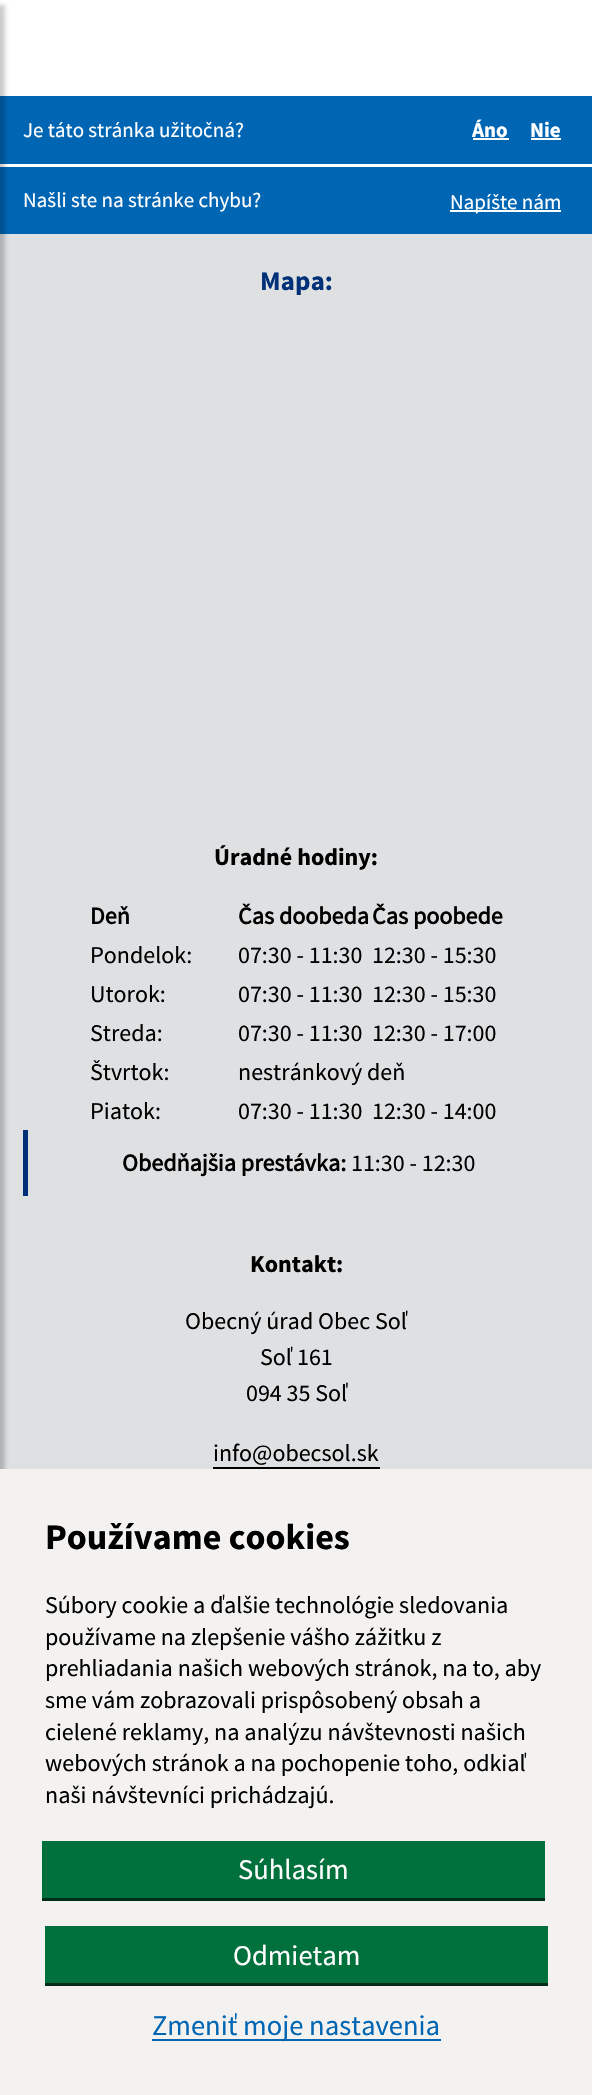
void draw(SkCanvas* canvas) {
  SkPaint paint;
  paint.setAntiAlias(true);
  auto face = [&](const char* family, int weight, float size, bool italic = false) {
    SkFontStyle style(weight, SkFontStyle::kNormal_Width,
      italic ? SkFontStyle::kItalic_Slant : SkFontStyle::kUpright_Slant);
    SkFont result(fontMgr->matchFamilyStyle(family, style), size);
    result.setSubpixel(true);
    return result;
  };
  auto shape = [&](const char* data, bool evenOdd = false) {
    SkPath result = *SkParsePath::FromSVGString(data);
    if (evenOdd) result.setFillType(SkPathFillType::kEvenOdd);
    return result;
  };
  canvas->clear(0xffffffff);
  {
    const struct { float x, y, w, h; SkColor color; } items[] = {
      {0, 96, 592, 138, 0xff0065b3},
      {0, 164, 592, 3, 0xffffffff},
      {0, 234, 592, 1235, 0xffdee0e2},
    };
    for (auto [x, y, w, h, color] : items) {
      paint.setColor(color);
      canvas->drawRect(SkRect::MakeXYWH(x, y, w, h), paint);
    }
  }
  paint.setColor(0x33000000);
  paint.setMaskFilter(SkMaskFilter::MakeBlur(kNormal_SkBlurStyle, 2));
  canvas->drawRect(SkRect::MakeXYWH(-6, 5, 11, 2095), paint);
  paint.setMaskFilter(nullptr);
  {
    const struct { float x, y, w, h; SkColor color; } items[] = {
      {473, 138, 36, 2, 0xffffffff},
      {531, 138, 30, 2, 0xffffffff},
      {450, 210, 111, 2, 0xffffffff},
      {23, 1130, 5, 66, 0xff003078},
      {213, 1467, 167, 2, 0xff000000},
      {0, 1469, 592, 626, 0xfff3f2f1},
    };
    for (auto [x, y, w, h, color] : items) {
      paint.setColor(color);
      canvas->drawRect(SkRect::MakeXYWH(x, y, w, h), paint);
    }
  }
  paint.setColor(0xff002d18);
  canvas->drawPath(shape("M42 1898V1901H545V1844H544V1898Z"), paint);
  paint.setColor(0xff00703c);
  canvas->drawRect(SkRect::MakeXYWH(42, 1841, 503, 57), paint);
  paint.setColor(0xff002d18);
  canvas->drawPath(shape("M45 1983V1986H548V1929V1983Z"), paint);
  paint.setColor(0xff00703c);
  canvas->drawRect(SkRect::MakeXYWH(45, 1926, 503, 57), paint);
  paint.setColor(0xff0065b3);
  canvas->drawRect(SkRect::MakeXYWH(152, 2039, 289, 2), paint);
  auto f0 = face("Source Sans Pro", 400, 21);
  paint.setColor(0xffffffff);
  canvas->drawString("Je táto stránka užitočná?", 23, 137, f0, paint);
  auto f1 = face("Source Sans Pro", 700, 21);
  canvas->drawString("Áno", 472, 137, f1, paint);
  canvas->drawString("Nie", 530, 137, f1, paint);
  canvas->drawString("Našli ste na stránke chybu?", 23, 207, f0, paint);
  canvas->drawString("Napíšte nám", 450, 209, f0, paint);
  auto f2 = face("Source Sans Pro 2", 700, 27);
  paint.setColor(0xff003078);
  canvas->drawString("Mapa:", 260, 290, f2, paint);
  auto f3 = face("Source Sans Pro 2", 700, 24);
  paint.setColor(0xff000000);
  canvas->drawString("Úradné hodiny:", 214, 865, f3, paint);
  auto f4 = face("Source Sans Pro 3", 700, 24);
  {
    const struct { const char* s; float x, y; } items[] = {
      {"Deň", 90, 924},
      {"Čas doobeda", 238, 924},
      {"Čas poobede", 372, 924},
    };
    for (auto [s, x, y] : items) {
      canvas->drawString(s, x, y, f4, paint);
    }
  }
  auto f5 = face("Source Sans Pro 2", 400, 24);
  {
    const struct { const char* s; float x, y; } items[] = {
      {"Pondelok:", 90, 963},
      {"07:30 - 11:30", 238, 963},
      {"12:30 - 15:30", 372, 963},
      {"Utorok:", 90, 1002},
      {"07:30 - 11:30", 238, 1002},
      {"12:30 - 15:30", 372, 1002},
      {"Streda:", 90, 1041},
      {"07:30 - 11:30", 238, 1041},
      {"12:30 - 17:00", 372, 1041},
      {"Štvrtok:", 90, 1080},
      {"nestránkový deň", 238, 1080},
      {"Piatok:", 90, 1119},
      {"07:30 - 11:30", 238, 1119},
      {"12:30 - 14:00", 372, 1119},
    };
    for (auto [s, x, y] : items) {
      canvas->drawString(s, x, y, f5, paint);
    }
  }
  canvas->drawString("Obedňajšia prestávka:", 122, 1171, f4, paint);
  canvas->drawString("11:30 - 12:30", 351, 1171, f5, paint);
  canvas->drawString("Kontakt:", 250, 1272, f3, paint);
  {
    const struct { const char* s; float x, y; } items[] = {
      {"Obecný úrad Obec Soľ", 185, 1329},
      {"Soľ 161", 260, 1365},
      {"094 35 Soľ", 246, 1401},
    };
    for (auto [s, x, y] : items) {
      canvas->drawString(s, x, y, f5, paint);
    }
  }
  auto f6 = face("Source Sans Pro", 400, 24);
  canvas->drawString("info@obecsol.sk", 213, 1461, f6, paint);
  auto f7 = face("Source Sans Pro", 700, 36);
  canvas->drawString("Používame cookies", 45, 1549, f7, paint);
  {
    const struct { const char* s; float x, y; } items[] = {
      {"Súbory cookie a ďalšie technológie sledovania", 45, 1613},
      {"používame na zlepšenie vášho zážitku z", 45, 1645},
      {"prehliadania našich webových stránok, na to, aby", 45, 1676},
      {"sme vám zobrazovali prispôsobený obsah a", 45, 1708},
      {"cielené reklamy, na analýzu návštevnosti našich", 45, 1740},
      {"webových stránok a na pochopenie toho, odkiaľ", 45, 1771},
      {"naši návštevníci prichádzajú.", 45, 1803},
    };
    for (auto [s, x, y] : items) {
      canvas->drawString(s, x, y, f6, paint);
    }
  }
  auto f8 = face("Source Sans Pro", 400, 28.5f);
  paint.setColor(0xffffffff);
  canvas->drawString("Súhlasím", 238, 1879, f8, paint);
  canvas->drawString("Odmietam", 233, 1965, f8, paint);
  paint.setColor(0xff0065b3);
  canvas->drawString("Zmeniť moje nastavenia", 152, 2035, f8, paint);
}
